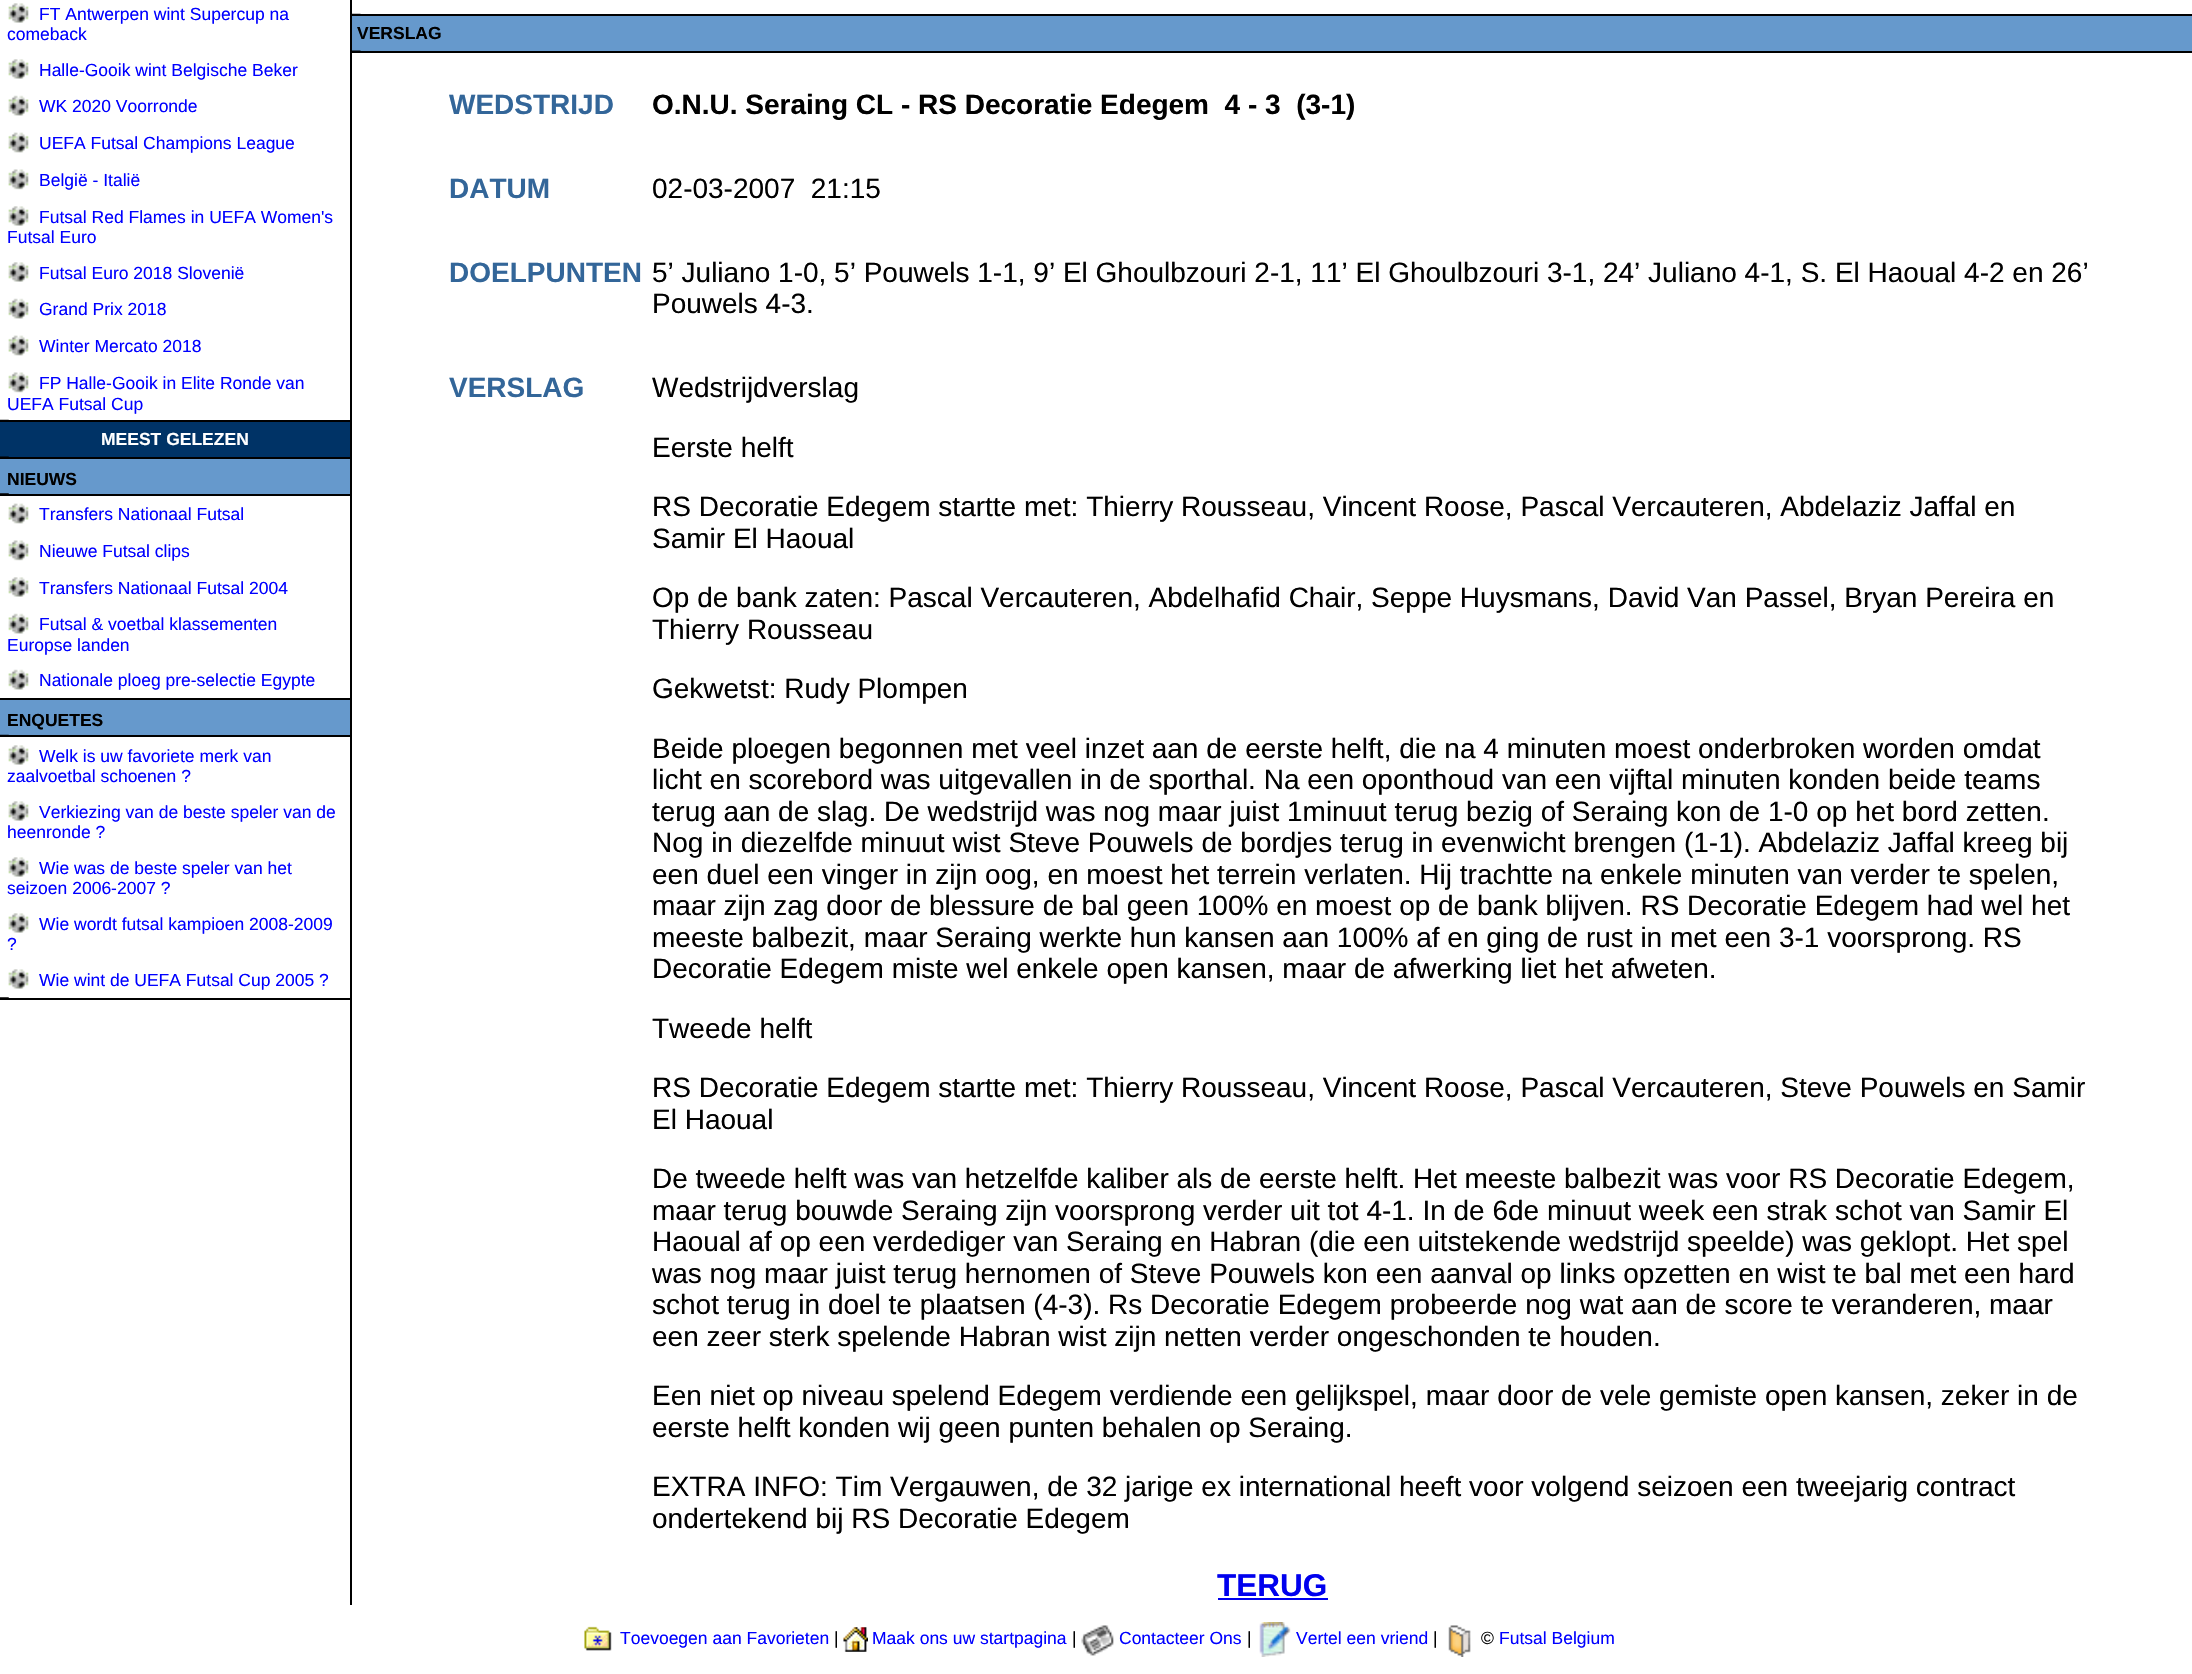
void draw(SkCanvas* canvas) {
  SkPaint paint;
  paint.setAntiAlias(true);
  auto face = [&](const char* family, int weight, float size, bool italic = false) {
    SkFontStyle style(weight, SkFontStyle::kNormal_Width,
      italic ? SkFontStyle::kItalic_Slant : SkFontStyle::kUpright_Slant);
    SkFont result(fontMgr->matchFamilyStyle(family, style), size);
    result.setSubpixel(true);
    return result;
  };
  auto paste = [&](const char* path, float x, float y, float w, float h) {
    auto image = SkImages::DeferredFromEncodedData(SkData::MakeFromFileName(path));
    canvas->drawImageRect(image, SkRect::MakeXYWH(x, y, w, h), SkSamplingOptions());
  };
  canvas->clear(0xffffffff);
  paste("img/1.png", 8, 3, 21, 20);
  paste("img/1.png", 8, 59, 21, 20);
  paste("img/2.png", 8, 95, 21, 21);
  paste("img/3.png", 8, 132, 21, 21);
  paste("img/4.png", 8, 169, 21, 21);
  paste("img/1.png", 8, 206, 21, 20);
  paste("img/1.png", 8, 262, 21, 20);
  paste("img/2.png", 8, 298, 21, 21);
  paste("img/3.png", 8, 335, 21, 21);
  paste("img/4.png", 8, 372, 21, 21);
  paint.setColor(0xff000000);
  canvas->drawRect(SkRect::MakeXYWH(0, 420, 350, 2), paint);
  paste("img/5.png", 0, 419, 9, 1);
  paint.setColor(0xff003366);
  canvas->drawRect(SkRect::MakeXYWH(0, 422, 350, 35), paint);
  paint.setColor(0xff000000);
  canvas->drawRect(SkRect::MakeXYWH(0, 457, 350, 2), paint);
  paste("img/6.png", 0, 456, 9, 1);
  paint.setColor(0xff6699cc);
  canvas->drawRect(SkRect::MakeXYWH(0, 459, 350, 35), paint);
  paint.setColor(0xff000000);
  canvas->drawRect(SkRect::MakeXYWH(0, 494, 350, 2), paint);
  paste("img/7.png", 0, 493, 9, 1);
  paste("img/3.png", 8, 503, 21, 21);
  paste("img/4.png", 8, 540, 21, 21);
  paste("img/1.png", 8, 577, 21, 20);
  paste("img/2.png", 8, 613, 21, 21);
  paste("img/2.png", 8, 669, 21, 21);
  {
    const struct { float x, y, w, h; SkColor color; } items[] = {
      {0, 698, 350, 2, 0xff000000},
      {0, 700, 350, 35, 0xff6699cc},
      {0, 735, 350, 2, 0xff000000},
    };
    for (auto [x, y, w, h, color] : items) {
      paint.setColor(color);
      canvas->drawRect(SkRect::MakeXYWH(x, y, w, h), paint);
    }
  }
  paste("img/8.png", 0, 734, 9, 1);
  paste("img/1.png", 8, 745, 21, 20);
  paste("img/1.png", 8, 801, 21, 20);
  paste("img/1.png", 8, 857, 21, 20);
  paste("img/1.png", 8, 913, 21, 20);
  paste("img/1.png", 8, 969, 21, 20);
  canvas->drawRect(SkRect::MakeXYWH(0, 998, 350, 2), paint);
  paste("img/9.png", 0, 997, 9, 1);
  canvas->drawRect(SkRect::MakeXYWH(350, 0, 2, 1605), paint);
  canvas->drawRect(SkRect::MakeXYWH(352, 14, 1840, 2), paint);
  paste("img/10.png", 352, 13, 9, 1);
  paint.setColor(0xff6699cc);
  canvas->drawRect(SkRect::MakeXYWH(352, 16, 1840, 35), paint);
  paint.setColor(0xff000000);
  canvas->drawRect(SkRect::MakeXYWH(352, 51, 1840, 2), paint);
  paste("img/11.png", 352, 50, 9, 1);
  paint.setColor(0xff0000ee);
  canvas->drawRect(SkRect::MakeXYWH(1218, 1598, 110, 2), paint);
  paste("img/12.png", 584, 1626, 28, 25);
  paste("img/13.png", 843, 1627, 25, 25);
  paste("img/14.png", 1081, 1625, 33, 31);
  paste("img/15.png", 1259, 1622, 32, 35);
  paste("img/16.png", 1448, 1625, 23, 32);
  auto f0 = face("Liberation Sans", 400, 17.5f);
  paint.setColor(0xff0000ff);
  {
    const struct { const char* s; float x, y; } items[] = {
      {"FT Antwerpen wint Supercup na", 39, 20},
      {"comeback", 7, 40},
      {"Halle-Gooik wint Belgische Beker", 39, 76},
      {"WK 2020 Voorronde", 39, 112},
      {"UEFA Futsal Champions League", 39, 149},
      {"België - Italië", 39, 186},
      {"Futsal Red Flames in UEFA Women's", 39, 223},
      {"Futsal Euro", 7, 243},
      {"Futsal Euro 2018 Slovenië", 39, 279},
      {"Grand Prix 2018", 39, 315},
      {"Winter Mercato 2018", 39, 352},
      {"FP Halle-Gooik in Elite Ronde van", 39, 389},
      {"UEFA Futsal Cup", 7, 410},
    };
    for (auto [s, x, y] : items) {
      canvas->drawString(s, x, y, f0, paint);
    }
  }
  auto f1 = face("Liberation Sans", 700, 17.5f);
  paint.setColor(0xffffffff);
  canvas->drawString("MEEST GELEZEN", 101, 445, f1, paint);
  paint.setColor(0xff000000);
  canvas->drawString("NIEUWS", 7, 485, f1, paint);
  paint.setColor(0xff0000ff);
  {
    const struct { const char* s; float x, y; } items[] = {
      {"Transfers Nationaal Futsal", 39, 520},
      {"Nieuwe Futsal clips", 39, 557},
      {"Transfers Nationaal Futsal 2004", 39, 594},
      {"Futsal & voetbal klassementen", 39, 630},
      {"Europse landen", 7, 651},
      {"Nationale ploeg pre-selectie Egypte", 39, 686},
    };
    for (auto [s, x, y] : items) {
      canvas->drawString(s, x, y, f0, paint);
    }
  }
  paint.setColor(0xff000000);
  canvas->drawString("ENQUETES", 7, 726, f1, paint);
  paint.setColor(0xff0000ff);
  {
    const struct { const char* s; float x, y; } items[] = {
      {"Welk is uw favoriete merk van", 39, 762},
      {"zaalvoetbal schoenen ?", 7, 782},
      {"Verkiezing van de beste speler van de", 39, 818},
      {"heenronde ?", 7, 838},
      {"Wie was de beste speler van het", 39, 874},
      {"seizoen 2006-2007 ?", 7, 894},
      {"Wie wordt futsal kampioen 2008-2009", 39, 930},
      {"?", 7, 950},
      {"Wie wint de UEFA Futsal Cup 2005 ?", 39, 986},
    };
    for (auto [s, x, y] : items) {
      canvas->drawString(s, x, y, f0, paint);
    }
  }
  paint.setColor(0xff000000);
  canvas->drawString("VERSLAG", 357, 39, f1, paint);
  auto f2 = face("Liberation Sans", 700, 28);
  paint.setColor(0xff336699);
  canvas->drawString("WEDSTRIJD", 449, 114, f2, paint);
  paint.setColor(0xff000000);
  canvas->drawString("O.N.U. Seraing CL - RS Decoratie Edegem  4 - 3  (3-1)", 652, 114, f2, paint);
  paint.setColor(0xff336699);
  canvas->drawString("DATUM", 449, 198, f2, paint);
  auto f3 = face("Liberation Sans", 400, 28);
  paint.setColor(0xff000000);
  canvas->drawString("02-03-2007  21:15", 652, 198, f3, paint);
  paint.setColor(0xff336699);
  canvas->drawString("DOELPUNTEN", 449, 282, f2, paint);
  paint.setColor(0xff000000);
  canvas->drawString("5’ Juliano 1-0, 5’ Pouwels 1-1, 9’ El Ghoulbzouri 2-1, 11’ El Ghoulbzouri 3-1, 24’ Juliano 4-1, S. El Haoual 4-2 en 26’", 652, 282, f3, paint);
  canvas->drawString("Pouwels 4-3.", 652, 313, f3, paint);
  paint.setColor(0xff336699);
  canvas->drawString("VERSLAG", 449, 397, f2, paint);
  paint.setColor(0xff000000);
  {
    const struct { const char* s; float x, y; } items[] = {
      {"Wedstrijdverslag", 652, 397},
      {"Eerste helft", 652, 457},
      {"RS Decoratie Edegem startte met: Thierry Rousseau, Vincent Roose, Pascal Vercauteren, Abdelaziz Jaffal en", 652, 516},
      {"Samir El Haoual", 652, 548},
      {"Op de bank zaten: Pascal Vercauteren, Abdelhafid Chair, Seppe Huysmans, David Van Passel, Bryan Pereira en", 652, 607},
      {"Thierry Rousseau", 652, 639},
      {"Gekwetst: Rudy Plompen", 652, 698},
      {"Beide ploegen begonnen met veel inzet aan de eerste helft, die na 4 minuten moest onderbroken worden omdat", 652, 758},
      {"licht en scorebord was uitgevallen in de sporthal. Na een oponthoud van een vijftal minuten konden beide teams", 652, 789},
      {"terug aan de slag. De wedstrijd was nog maar juist 1minuut terug bezig of Seraing kon de 1-0 op het bord zetten.", 652, 821},
      {"Nog in diezelfde minuut wist Steve Pouwels de bordjes terug in evenwicht brengen (1-1). Abdelaziz Jaffal kreeg bij", 652, 852},
      {"een duel een vinger in zijn oog, en moest het terrein verlaten. Hij trachtte na enkele minuten van verder te spelen,", 652, 884},
      {"maar zijn zag door de blessure de bal geen 100% en moest op de bank blijven. RS Decoratie Edegem had wel het", 652, 915},
      {"meeste balbezit, maar Seraing werkte hun kansen aan 100% af en ging de rust in met een 3-1 voorsprong. RS", 652, 947},
      {"Decoratie Edegem miste wel enkele open kansen, maar de afwerking liet het afweten.", 652, 978},
      {"Tweede helft", 652, 1038},
      {"RS Decoratie Edegem startte met: Thierry Rousseau, Vincent Roose, Pascal Vercauteren, Steve Pouwels en Samir", 652, 1097},
      {"El Haoual", 652, 1129},
      {"De tweede helft was van hetzelfde kaliber als de eerste helft. Het meeste balbezit was voor RS Decoratie Edegem,", 652, 1188},
      {"maar terug bouwde Seraing zijn voorsprong verder uit tot 4-1. In de 6de minuut week een strak schot van Samir El", 652, 1220},
      {"Haoual af op een verdediger van Seraing en Habran (die een uitstekende wedstrijd speelde) was geklopt. Het spel", 652, 1251},
      {"was nog maar juist terug hernomen of Steve Pouwels kon een aanval op links opzetten en wist te bal met een hard", 652, 1283},
      {"schot terug in doel te plaatsen (4-3). Rs Decoratie Edegem probeerde nog wat aan de score te veranderen, maar", 652, 1314},
      {"een zeer sterk spelende Habran wist zijn netten verder ongeschonden te houden.", 652, 1346},
      {"Een niet op niveau spelend Edegem verdiende een gelijkspel, maar door de vele gemiste open kansen, zeker in de", 652, 1405},
      {"eerste helft konden wij geen punten behalen op Seraing.", 652, 1437},
      {"EXTRA INFO: Tim Vergauwen, de 32 jarige ex international heeft voor volgend seizoen een tweejarig contract", 652, 1496},
      {"ondertekend bij RS Decoratie Edegem", 652, 1528},
    };
    for (auto [s, x, y] : items) {
      canvas->drawString(s, x, y, f3, paint);
    }
  }
  auto f4 = face("Liberation Sans", 700, 31.5f);
  paint.setColor(0xff0000ee);
  canvas->drawString("TERUG", 1217, 1596, f4, paint);
  paint.setColor(0xff0000ff);
  canvas->drawString("Toevoegen aan Favorieten", 620, 1644, f0, paint);
  paint.setColor(0xff000000);
  canvas->drawString("|", 834, 1644, f0, paint);
  paint.setColor(0xff0000ff);
  canvas->drawString("Maak ons uw startpagina", 872, 1644, f0, paint);
  paint.setColor(0xff000000);
  canvas->drawString("|", 1072, 1644, f0, paint);
  paint.setColor(0xff0000ff);
  canvas->drawString("Contacteer Ons", 1119, 1644, f0, paint);
  paint.setColor(0xff000000);
  canvas->drawString("|", 1247, 1644, f0, paint);
  paint.setColor(0xff0000ff);
  canvas->drawString("Vertel een vriend", 1296, 1644, f0, paint);
  paint.setColor(0xff000000);
  canvas->drawString("|", 1433, 1644, f0, paint);
  canvas->drawString("©", 1481, 1644, f0, paint);
  paint.setColor(0xff0000ff);
  canvas->drawString("Futsal Belgium", 1499, 1644, f0, paint);
}
